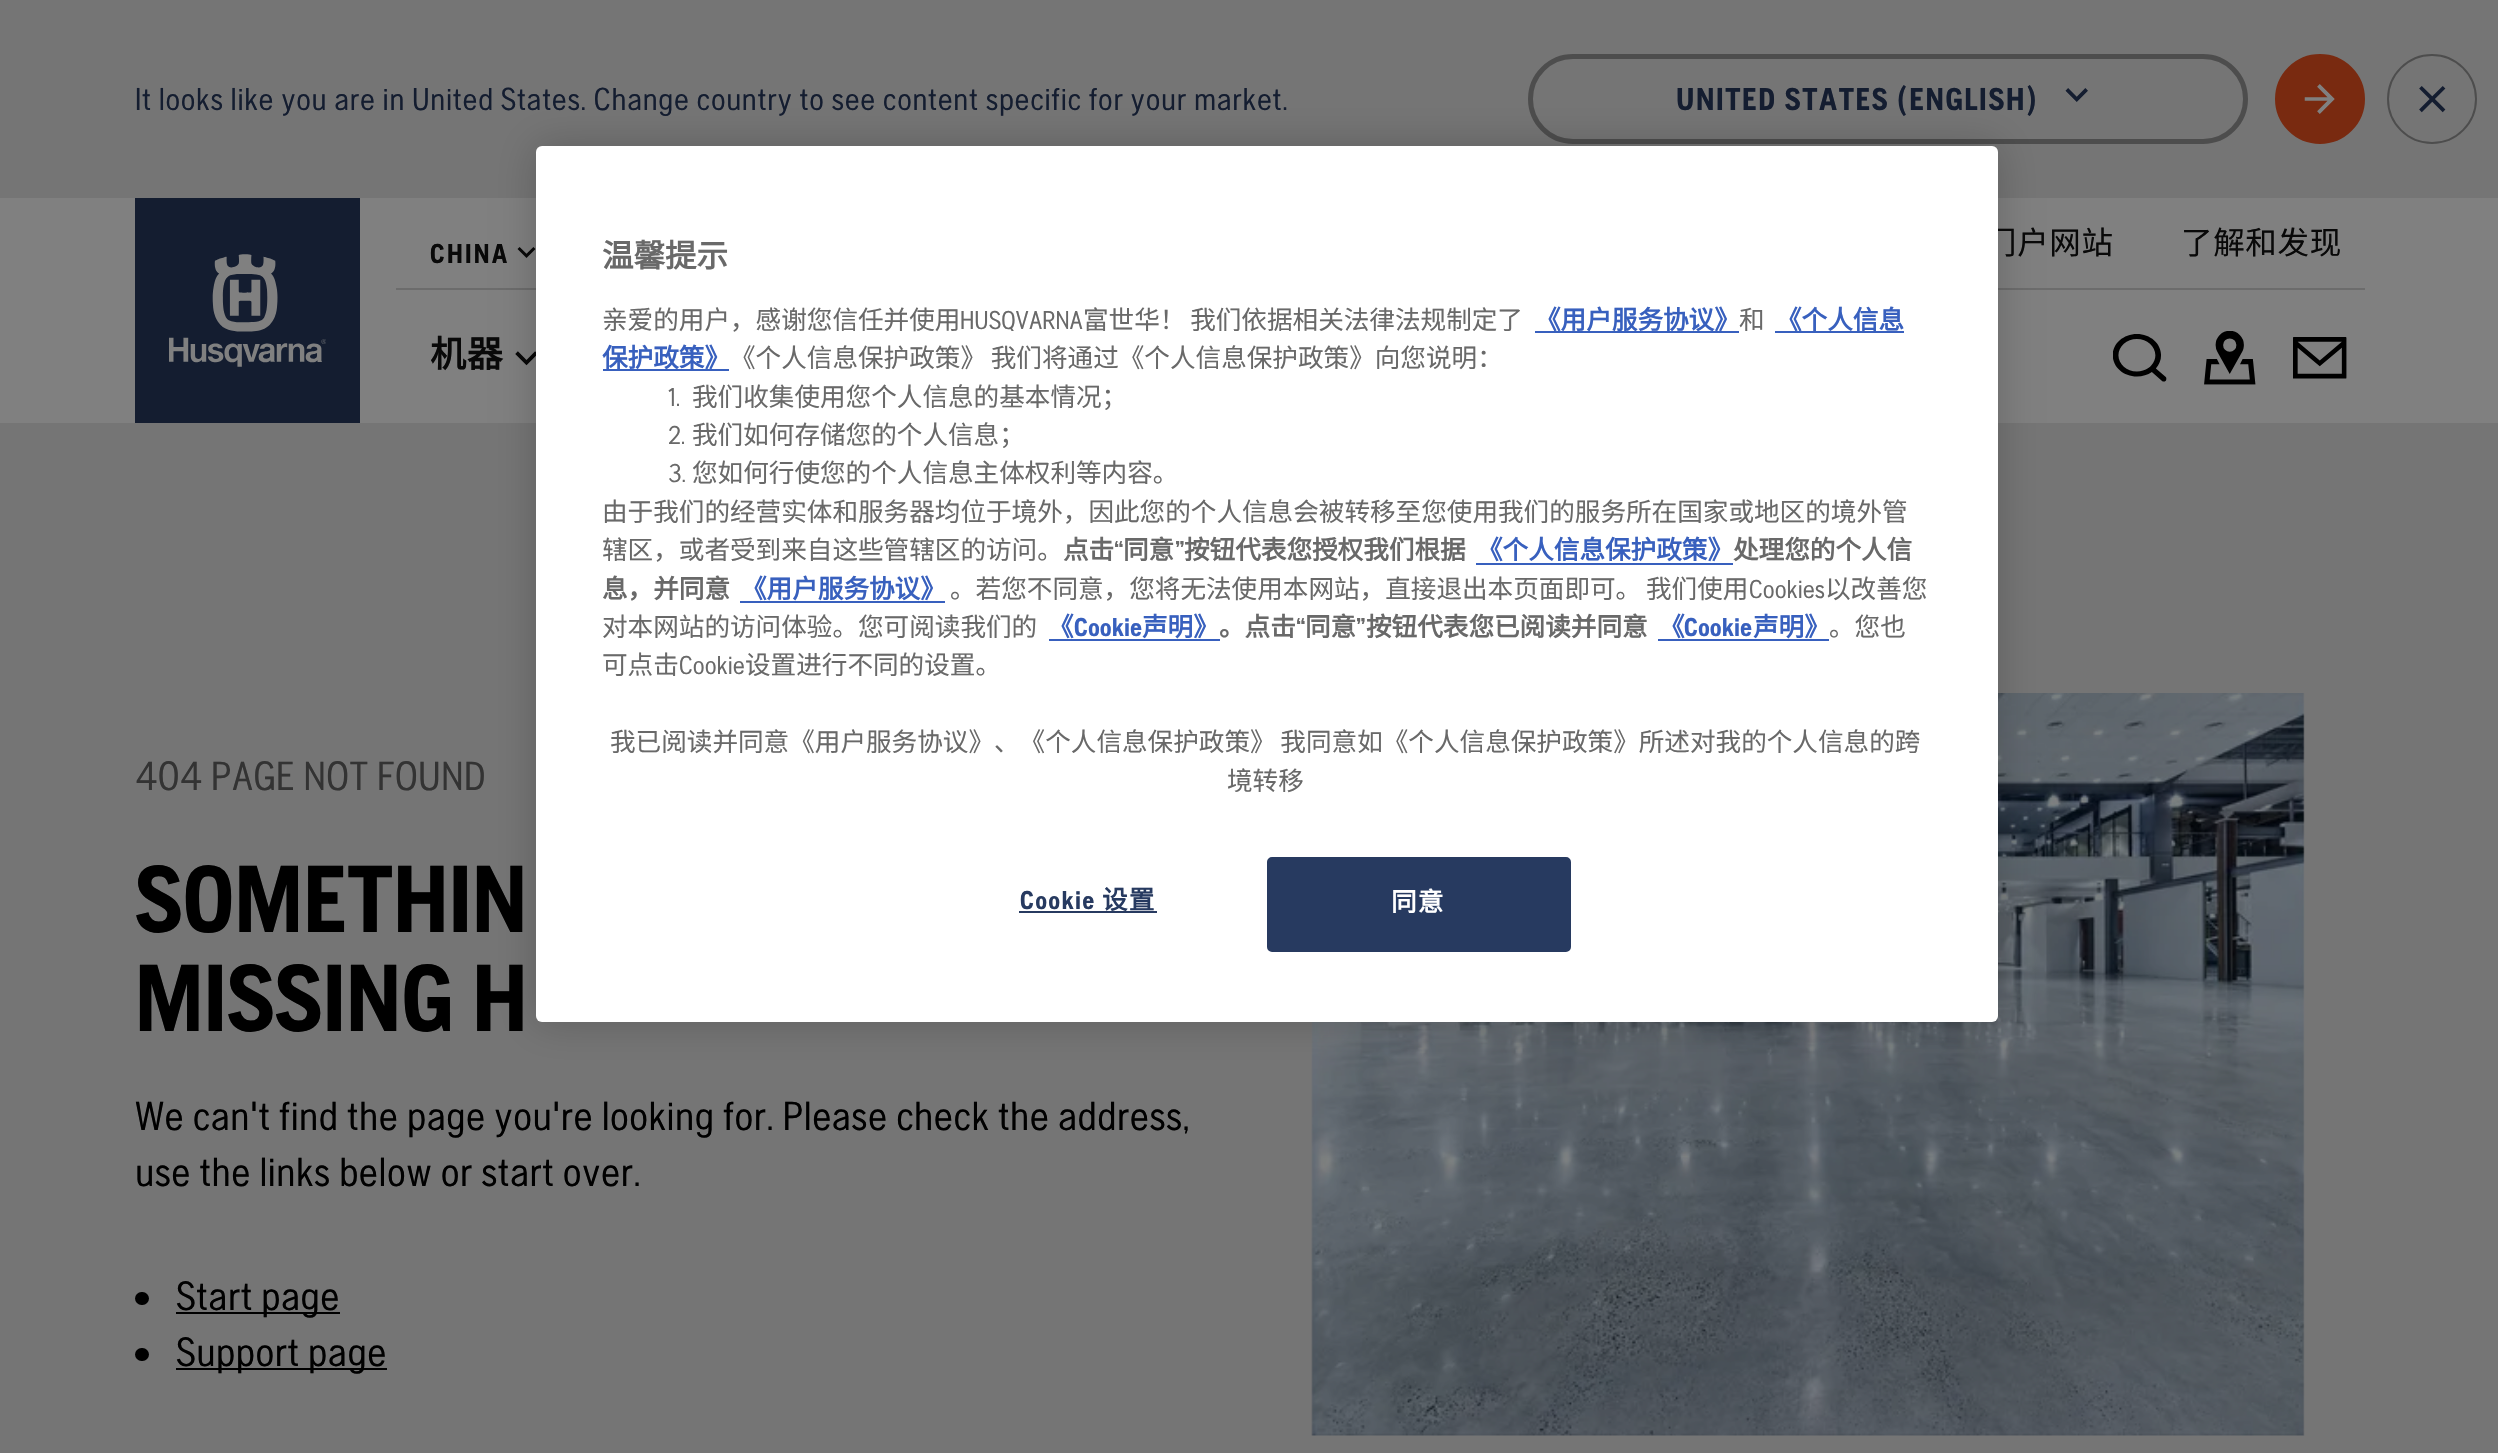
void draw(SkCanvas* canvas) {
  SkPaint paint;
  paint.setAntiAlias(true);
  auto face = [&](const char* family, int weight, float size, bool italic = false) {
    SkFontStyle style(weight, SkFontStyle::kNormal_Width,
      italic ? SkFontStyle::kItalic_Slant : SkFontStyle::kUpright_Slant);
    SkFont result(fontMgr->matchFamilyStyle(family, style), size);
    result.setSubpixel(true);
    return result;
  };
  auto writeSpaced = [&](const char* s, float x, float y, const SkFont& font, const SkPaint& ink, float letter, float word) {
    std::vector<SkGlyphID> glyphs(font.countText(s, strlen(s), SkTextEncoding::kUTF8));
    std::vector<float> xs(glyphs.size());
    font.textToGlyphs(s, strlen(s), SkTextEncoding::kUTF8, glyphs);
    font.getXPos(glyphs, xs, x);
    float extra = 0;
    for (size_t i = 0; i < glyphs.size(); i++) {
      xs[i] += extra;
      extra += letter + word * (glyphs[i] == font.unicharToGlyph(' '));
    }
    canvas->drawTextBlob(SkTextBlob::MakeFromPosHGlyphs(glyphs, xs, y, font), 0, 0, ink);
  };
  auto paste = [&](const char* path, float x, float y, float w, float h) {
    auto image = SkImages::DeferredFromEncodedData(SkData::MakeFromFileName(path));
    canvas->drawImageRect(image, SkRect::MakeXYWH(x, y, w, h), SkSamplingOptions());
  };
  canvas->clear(0xff808080);
  paint.setColor(0xff757575);
  canvas->drawRect(SkRect::MakeXYWH(0, 0, 2498, 198), paint);
  paint.setStroke(true);
  paint.setStrokeWidth(5);
  paint.setColor(0xff4d4d4d);
  canvas->drawRoundRect(SkRect::MakeXYWH(1530.5f, 56.5f, 715, 85), 42.5f, 42.5f, paint);
  paste("img/1.png", 2065, 88, 23, 14);
  paint.setStroke(false);
  paint.setColor(0xff792a10);
  canvas->drawCircle(2320, 99, 44, paint);
  paint.setStroke(true);
  paint.setStrokeWidth(2);
  canvas->drawCircle(2320, 99, 44, paint);
  paste("img/2.png", 2304, 84, 31, 30);
  paint.setColor(0xff4d4d4d);
  canvas->drawCircle(2432, 99, 44, paint);
  paste("img/3.png", 2419, 86, 27, 27);
  paint.setStroke(false);
  paint.setColor(0xff141d30);
  canvas->drawRect(SkRect::MakeXYWH(135, 198, 225, 225), paint);
  paste("img/4.png", 169, 254, 157, 113);
  paint.setColor(0xff6c6c6c);
  canvas->drawRect(SkRect::MakeXYWH(396, 288, 1969, 2), paint);
  paste("img/5.png", 517, 247, 19, 11);
  paste("img/6.png", 515, 351, 21, 15);
  paste("img/7.png", 2113, 334, 54, 48);
  paste("img/8.png", 2204, 331, 52, 54);
  paste("img/9.png", 2293, 337, 54, 42);
  paint.setColor(0xff757575);
  canvas->drawRect(SkRect::MakeXYWH(0, 423, 2498, 1030), paint);
  paste("img/10.png", 1311, 693, 994, 743);
  paint.setColor(0x33000000);
  paint.setMaskFilter(SkMaskFilter::MakeBlur(kNormal_SkBlurStyle, 20));
  canvas->drawRoundRect(SkRect::MakeXYWH(536, 146, 1462, 876), 6, 6, paint);
  paint.setMaskFilter(nullptr);
  paint.setColor(0xff000000);
  canvas->drawRoundRect(SkRect::MakeXYWH(135, 1292, 14, 13), 6.5f, 6.5f, paint);
  canvas->drawRect(SkRect::MakeXYWH(176, 1312, 164, 2), paint);
  canvas->drawRoundRect(SkRect::MakeXYWH(135, 1348, 14, 13), 6.5f, 6.5f, paint);
  canvas->drawRect(SkRect::MakeXYWH(176, 1368, 211, 2), paint);
  auto f0 = face("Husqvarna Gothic", 400, 31.5f);
  paint.setColor(0xff141d30);
  writeSpaced("It looks like you are in United States. Change country to see content specific for your market.", 135, 110, f0, paint, 0.67f, 0);
  auto f1 = face("Husqvarna Gothic", 700, 31.5f);
  writeSpaced("UNITED STATES (ENGLISH)", 1676, 110, f1, paint, 1.6f, 0);
  auto f2 = face("Husqvarna Gothic", 700, 27);
  paint.setColor(0xff090909);
  writeSpaced("CHINA", 430, 263, f2, paint, 2.25f, 0);
  auto f3 = face("Noto Sans CJK SC", 400, 31.5f);
  writeSpaced("门户网站", 1985, 254, f3, paint, 0.67f, 0);
  writeSpaced("了解和发现", 2181, 254, f3, paint, 0.67f, 0);
  auto f4 = face("Noto Sans CJK SC", 700, 36);
  writeSpaced("机器", 430, 367, f4, paint, 0.67f, 0);
  paint.setColor(0xffffffff);
  canvas->drawRoundRect(SkRect::MakeXYWH(536, 146, 1462, 876), 6, 6, paint);
  auto f5 = face("Noto Sans CJK SC", 700, 31.5f);
  paint.setColor(0xff696969);
  canvas->drawString("温馨提示", 602, 267, f5, paint);
  auto f6 = face("Noto Sans CJK SC", 400, 25.6f);
  canvas->drawString("亲爱的用户，感谢您信任并使用", 602, 329, f6, paint);
  auto f7 = face("Husqvarna Gothic", 400, 25.6f);
  canvas->drawString("HUSQVARNA", 960, 329, f7, paint);
  writeSpaced("富世华！ 我们依据相关法律法规制定了", 1083, 329, f6, paint, 0, -1);
  paint.setColor(0xff3860be);
  canvas->drawRect(SkRect::MakeXYWH(1535, 331, 204, 2), paint);
  auto f8 = face("Noto Sans CJK SC", 700, 25.6f);
  canvas->drawString("《用户服务协议》", 1535, 329, f8, paint);
  paint.setColor(0xff696969);
  canvas->drawString("和", 1739, 329, f6, paint);
  paint.setColor(0xff3860be);
  canvas->drawRect(SkRect::MakeXYWH(1775, 331, 129, 2), paint);
  canvas->drawString("《个人信息", 1776, 329, f8, paint);
  canvas->drawRect(SkRect::MakeXYWH(603, 369, 126, 2), paint);
  canvas->drawString("保护政策》", 602, 367, f8, paint);
  paint.setColor(0xff696969);
  writeSpaced("《个人信息保护政策》 我们将通过《个人信息保护政策》向您说明：", 730, 367, f6, paint, 0, -1);
  canvas->drawString("1.", 668, 406, f7, paint);
  canvas->drawString("我们收集使用您个人信息的基本情况；", 692, 406, f6, paint);
  canvas->drawString("2.", 668, 444, f7, paint);
  canvas->drawString("我们如何存储您的个人信息；", 692, 444, f6, paint);
  canvas->drawString("3.", 668, 482, f7, paint);
  {
    const struct { const char* s; float x, y; } items[] = {
      {"您如何行使您的个人信息主体权利等内容。", 692, 482},
      {"由于我们的经营实体和服务器均位于境外，因此您的个人信息会被转移至您使用我们的服务所在国家或地区的境外管", 602, 521},
      {"辖区，或者受到来自这些管辖区的访问。", 602, 559},
    };
    for (auto [s, x, y] : items) {
      canvas->drawString(s, x, y, f6, paint);
    }
  }
  canvas->drawString("点击", 1063, 559, f8, paint);
  auto f9 = face("Husqvarna Gothic", 700, 25.6f);
  canvas->drawString("“", 1114, 559, f9, paint);
  canvas->drawString("同意", 1123, 559, f8, paint);
  canvas->drawString("”", 1175, 559, f9, paint);
  canvas->drawString("按钮代表您授权我们根据", 1184, 559, f8, paint);
  paint.setColor(0xff3860be);
  canvas->drawString("《个人信息保护政策》", 1477, 559, f8, paint);
  canvas->drawRect(SkRect::MakeXYWH(1476, 563, 257, 2), paint);
  paint.setColor(0xff696969);
  canvas->drawString("处理您的个人信", 1733, 559, f8, paint);
  canvas->drawString("息，并同意", 602, 598, f8, paint);
  paint.setColor(0xff3860be);
  canvas->drawString("《用户服务协议》", 741, 598, f8, paint);
  canvas->drawRect(SkRect::MakeXYWH(740, 601, 205, 2), paint);
  paint.setColor(0xff696969);
  writeSpaced("。若您不同意，您将无法使用本网站，直接退出本页面即可。 我们使用", 950, 598, f6, paint, 0, -1);
  canvas->drawString("Cookies", 1749, 598, f7, paint);
  canvas->drawString("以改善您", 1825, 598, f6, paint);
  canvas->drawString("对本网站的访问体验。您可阅读我们的", 602, 636, f6, paint);
  paint.setColor(0xff3860be);
  canvas->drawString("《", 1048, 636, f8, paint);
  canvas->drawString("Cookie", 1074, 636, f9, paint);
  canvas->drawRect(SkRect::MakeXYWH(1049, 639, 171, 2), paint);
  canvas->drawString("声明》", 1142, 636, f8, paint);
  paint.setColor(0xff696969);
  canvas->drawString("。点击", 1219, 636, f8, paint);
  canvas->drawString("“", 1296, 636, f9, paint);
  canvas->drawString("同意", 1305, 636, f8, paint);
  canvas->drawString("”", 1356, 636, f9, paint);
  canvas->drawString("按钮代表您已阅读并同意", 1366, 636, f8, paint);
  paint.setColor(0xff3860be);
  canvas->drawString("《", 1659, 636, f8, paint);
  canvas->drawString("Cookie", 1684, 636, f9, paint);
  canvas->drawRect(SkRect::MakeXYWH(1658, 639, 171, 2), paint);
  canvas->drawString("声明》", 1753, 636, f8, paint);
  paint.setColor(0xff696969);
  canvas->drawString("。您也", 1829, 636, f6, paint);
  canvas->drawString("可点击", 602, 674, f6, paint);
  canvas->drawString("Cookie", 679, 674, f7, paint);
  canvas->drawString("设置进行不同的设置。", 745, 674, f6, paint);
  writeSpaced("我已阅读并同意《用户服务协议》、《个人信息保护政策》 我同意如《个人信息保护政策》所述对我的个人信息的跨", 610, 751, f6, paint, 0, -1);
  canvas->drawString("境转移", 1227, 790, f6, paint);
  paint.setColor(0xff273a60);
  writeSpaced("Cookie", 1020, 909, f9, paint, 1.25f, 0);
  canvas->drawRect(SkRect::MakeXYWH(1019, 911, 138, 2), paint);
  writeSpaced("设置", 1102, 909, f8, paint, 1.25f, 0);
  canvas->drawRoundRect(SkRect::MakeXYWH(1268, 858, 302, 93), 4, 4, paint);
  paint.setStroke(true);
  canvas->drawRoundRect(SkRect::MakeXYWH(1268, 858, 302, 93), 4, 4, paint);
  paint.setStroke(false);
  paint.setColor(0xffffffff);
  writeSpaced("同意", 1391, 911, f8, paint, 1.25f, 0);
  auto f10 = face("Husqvarna Gothic", 400, 40.5f);
  paint.setColor(0xff333333);
  writeSpaced("404 PAGE NOT FOUND", 135, 790, f10, paint, 0.45f, 0);
  auto f11 = face("Husqvarna Gothic", 700, 94.5f);
  paint.setColor(0xff000000);
  writeSpaced("SOMETHIN", 135, 932, f11, paint, 0.25f, 0);
  writeSpaced("MISSING H", 135, 1031, f11, paint, 0.25f, 0);
  {
    const struct { const char* s; float x, y; } items[] = {
      {"We can't find the page you're looking for. Please check the address,", 135, 1130},
      {"use the links below or start over.", 135, 1186},
      {"Start page", 176, 1310},
      {"Support page", 176, 1366},
    };
    for (auto [s, x, y] : items) {
      writeSpaced(s, x, y, f10, paint, 0.45f, 0);
    }
  }
}
